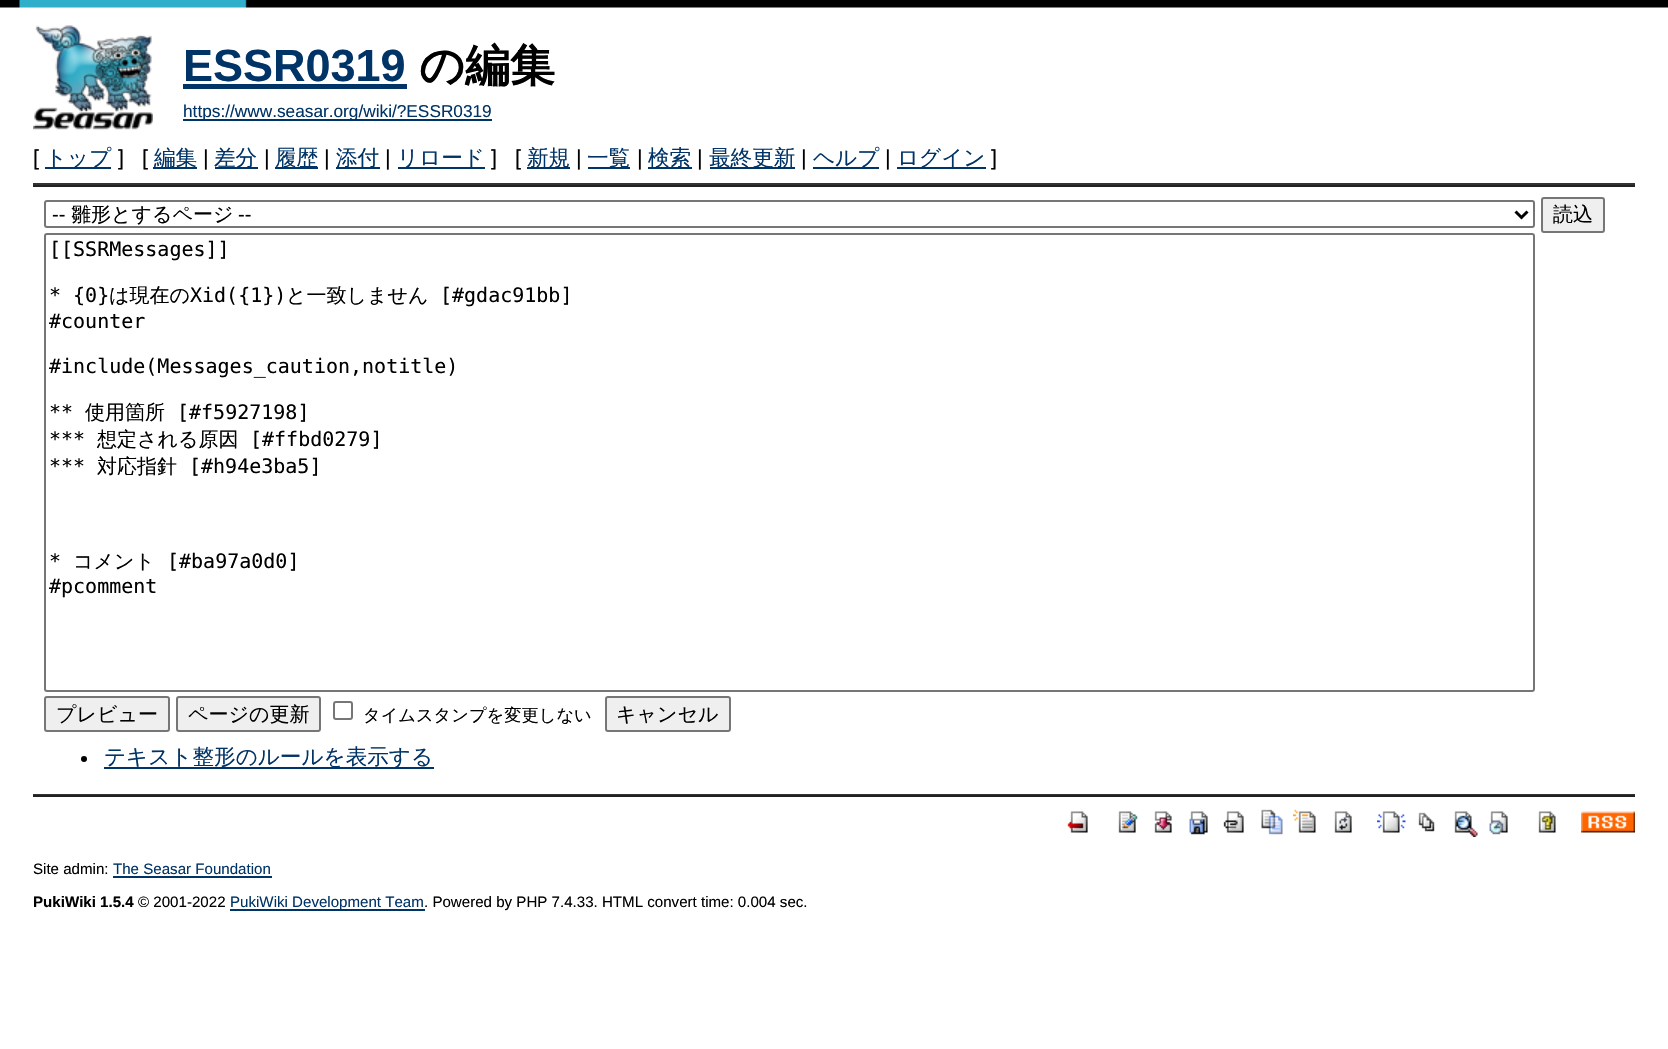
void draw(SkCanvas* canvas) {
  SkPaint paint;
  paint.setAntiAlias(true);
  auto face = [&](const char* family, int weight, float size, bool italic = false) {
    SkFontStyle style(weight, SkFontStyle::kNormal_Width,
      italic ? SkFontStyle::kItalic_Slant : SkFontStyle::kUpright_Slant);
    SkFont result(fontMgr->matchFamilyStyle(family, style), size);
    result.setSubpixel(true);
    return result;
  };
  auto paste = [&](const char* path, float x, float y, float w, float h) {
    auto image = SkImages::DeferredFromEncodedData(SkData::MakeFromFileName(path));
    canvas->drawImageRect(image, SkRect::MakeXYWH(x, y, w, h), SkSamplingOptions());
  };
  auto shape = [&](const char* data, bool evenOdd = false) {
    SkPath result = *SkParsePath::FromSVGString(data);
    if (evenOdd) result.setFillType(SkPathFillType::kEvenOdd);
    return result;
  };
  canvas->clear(0xffffffff);
  paste("img/1.png", 0, 0, 1668, 8);
  paste("img/2.png", 33, 25, 120, 105);
  {
    const struct { float x, y, w, h; SkColor color; } items[] = {
      {183, 84, 224, 5, 0xff003366},
      {183, 119, 309, 2, 0xff003366},
      {45, 167, 66, 2, 0xff003366},
      {153, 167, 44, 2, 0xff003366},
      {215, 167, 43, 2, 0xff003366},
      {275, 167, 43, 2, 0xff003366},
      {336, 167, 44, 2, 0xff003366},
      {398, 167, 87, 2, 0xff003366},
      {527, 167, 43, 2, 0xff003366},
      {588, 167, 42, 2, 0xff003366},
      {648, 167, 44, 2, 0xff003366},
      {710, 167, 85, 2, 0xff003366},
      {813, 167, 66, 2, 0xff003366},
      {897, 167, 89, 2, 0xff003366},
      {33, 183, 1602, 2, 0xff333333},
      {33, 185, 1602, 2, 0xff222222},
    };
    for (auto [x, y, w, h, color] : items) {
      paint.setColor(color);
      canvas->drawRect(SkRect::MakeXYWH(x, y, w, h), paint);
    }
  }
  paint.setStroke(true);
  paint.setStrokeWidth(2);
  paint.setColor(0xff767676);
  canvas->drawRoundRect(SkRect::MakeXYWH(45, 201, 1489, 26), 2, 2, paint);
  paint.setStrokeWidth(3);
  paint.setColor(0xff000000);
  canvas->drawPath(shape("M1515.5 211.5L1521.5 217.5L1527.5 211.5"), paint);
  paint.setStroke(false);
  paint.setColor(0xffefefef);
  canvas->drawRoundRect(SkRect::MakeXYWH(1542, 198, 62, 34), 2, 2, paint);
  paint.setStroke(true);
  paint.setStrokeWidth(2);
  paint.setColor(0xff767676);
  canvas->drawRoundRect(SkRect::MakeXYWH(1542, 198, 62, 34), 2, 2, paint);
  canvas->drawRoundRect(SkRect::MakeXYWH(45, 234, 1489, 457), 2, 2, paint);
  paint.setStroke(false);
  paint.setColor(0xffefefef);
  canvas->drawRoundRect(SkRect::MakeXYWH(45, 697, 124, 34), 2, 2, paint);
  paint.setStroke(true);
  paint.setColor(0xff767676);
  canvas->drawRoundRect(SkRect::MakeXYWH(45, 697, 124, 34), 2, 2, paint);
  paint.setStroke(false);
  paint.setColor(0xffefefef);
  canvas->drawRoundRect(SkRect::MakeXYWH(177, 697, 143, 34), 2, 2, paint);
  paint.setStroke(true);
  paint.setColor(0xff767676);
  canvas->drawRoundRect(SkRect::MakeXYWH(177, 697, 143, 34), 2, 2, paint);
  canvas->drawRoundRect(SkRect::MakeXYWH(334, 702, 18, 17), 2, 2, paint);
  paint.setStroke(false);
  paint.setColor(0xffefefef);
  canvas->drawRoundRect(SkRect::MakeXYWH(606, 697, 124, 34), 2, 2, paint);
  paint.setStroke(true);
  paint.setColor(0xff767676);
  canvas->drawRoundRect(SkRect::MakeXYWH(606, 697, 124, 34), 2, 2, paint);
  paint.setStroke(false);
  paint.setColor(0xff000000);
  canvas->drawCircle(84, 759, 3, paint);
  {
    const struct { float x, y, w, h; SkColor color; } items[] = {
      {104, 767, 330, 2, 0xff003366},
      {33, 794, 1602, 1, 0xff333333},
      {33, 795, 1602, 2, 0xff222222},
    };
    for (auto [x, y, w, h, color] : items) {
      paint.setColor(color);
      canvas->drawRect(SkRect::MakeXYWH(x, y, w, h), paint);
    }
  }
  paste("img/3.png", 1067, 811, 21, 22);
  paste("img/4.png", 1118, 811, 20, 22);
  paste("img/5.png", 1154, 811, 18, 22);
  paste("img/6.png", 1189, 811, 19, 24);
  paste("img/7.png", 1223, 811, 21, 22);
  paste("img/8.png", 1261, 809, 22, 26);
  paste("img/9.png", 1293, 809, 23, 24);
  paste("img/10.png", 1334, 811, 18, 22);
  paste("img/11.png", 1377, 811, 29, 22);
  paste("img/12.png", 1418, 812, 17, 20);
  paste("img/13.png", 1454, 811, 24, 26);
  paste("img/14.png", 1489, 811, 19, 24);
  paste("img/15.png", 1538, 811, 18, 22);
  paste("img/16.png", 1581, 811, 54, 22);
  paint.setColor(0xff003366);
  canvas->drawRect(SkRect::MakeXYWH(113, 876, 159, 2), paint);
  canvas->drawRect(SkRect::MakeXYWH(230, 909, 195, 2), paint);
  auto f0 = face("Liberation Sans", 700, 45);
  canvas->drawString("ESSR0319", 183, 81, f0, paint);
  auto f1 = face("WenQuanYi Zen Hei", 700, 45);
  paint.setColor(0xff000000);
  canvas->drawString("の編集", 419, 81, f1, paint);
  auto f2 = face("Liberation Sans", 400, 17.25f);
  paint.setColor(0xff003366);
  canvas->drawString("https://www.seasar.org/wiki/?ESSR0319", 183, 117, f2, paint);
  auto f3 = face("Liberation Sans", 400, 21.6f);
  paint.setColor(0xff000000);
  canvas->drawString("[", 33, 165, f3, paint);
  auto f4 = face("WenQuanYi Zen Hei", 500, 21.6f);
  paint.setColor(0xff003366);
  canvas->drawString("トップ", 45, 165, f4, paint);
  paint.setColor(0xff000000);
  canvas->drawString("]", 118, 165, f3, paint);
  canvas->drawString("[", 142, 165, f3, paint);
  paint.setColor(0xff003366);
  canvas->drawString("編集", 154, 165, f4, paint);
  paint.setColor(0xff000000);
  canvas->drawString("|", 203, 165, f3, paint);
  paint.setColor(0xff003366);
  canvas->drawString("差分", 214, 165, f4, paint);
  paint.setColor(0xff000000);
  canvas->drawString("|", 264, 165, f3, paint);
  paint.setColor(0xff003366);
  canvas->drawString("履歴", 275, 165, f4, paint);
  paint.setColor(0xff000000);
  canvas->drawString("|", 324, 165, f3, paint);
  paint.setColor(0xff003366);
  canvas->drawString("添付", 336, 165, f4, paint);
  paint.setColor(0xff000000);
  canvas->drawString("|", 385, 165, f3, paint);
  paint.setColor(0xff003366);
  canvas->drawString("リロード", 397, 165, f4, paint);
  paint.setColor(0xff000000);
  canvas->drawString("]", 491, 165, f3, paint);
  canvas->drawString("[", 515, 165, f3, paint);
  paint.setColor(0xff003366);
  canvas->drawString("新規", 527, 165, f4, paint);
  paint.setColor(0xff000000);
  canvas->drawString("|", 576, 165, f3, paint);
  paint.setColor(0xff003366);
  canvas->drawString("一覧", 587, 165, f4, paint);
  paint.setColor(0xff000000);
  canvas->drawString("|", 637, 165, f3, paint);
  paint.setColor(0xff003366);
  canvas->drawString("検索", 648, 165, f4, paint);
  paint.setColor(0xff000000);
  canvas->drawString("|", 697, 165, f3, paint);
  paint.setColor(0xff003366);
  canvas->drawString("最終更新", 709, 165, f4, paint);
  paint.setColor(0xff000000);
  canvas->drawString("|", 801, 165, f3, paint);
  paint.setColor(0xff003366);
  canvas->drawString("ヘルプ", 813, 165, f4, paint);
  paint.setColor(0xff000000);
  canvas->drawString("|", 885, 165, f3, paint);
  paint.setColor(0xff003366);
  canvas->drawString("ログイン", 897, 165, f4, paint);
  paint.setColor(0xff000000);
  canvas->drawString("]", 991, 165, f3, paint);
  auto f5 = face("Liberation Sans", 400, 20);
  canvas->drawString("--", 52, 221, f5, paint);
  auto f6 = face("WenQuanYi Zen Hei", 500, 20);
  canvas->drawString("雛形とするページ", 71, 221, f6, paint);
  canvas->drawString("--", 238, 221, f5, paint);
  canvas->drawString("読込", 1553, 221, f6, paint);
  auto f7 = face("DejaVu Sans Mono", 400, 20);
  canvas->drawString("[[SSRMessages]]", 49, 256, f7, paint);
  canvas->drawString("* {0}", 49, 302, f7, paint);
  canvas->drawString("は現在の", 109, 302, f6, paint);
  canvas->drawString("Xid({1})", 190, 302, f7, paint);
  canvas->drawString("と一致しません", 286, 302, f6, paint);
  {
    const struct { const char* s; float x, y; } items[] = {
      {"[#gdac91bb]", 440, 302},
      {"#counter", 49, 328},
      {"#include(Messages_caution,notitle)", 49, 373},
      {"**", 49, 419},
    };
    for (auto [s, x, y] : items) {
      canvas->drawString(s, x, y, f7, paint);
    }
  }
  canvas->drawString("使用箇所", 85, 419, f6, paint);
  canvas->drawString("[#f5927198]", 177, 419, f7, paint);
  canvas->drawString("***", 49, 446, f7, paint);
  canvas->drawString("想定される原因", 97, 446, f6, paint);
  canvas->drawString("[#ffbd0279]", 250, 446, f7, paint);
  canvas->drawString("***", 49, 473, f7, paint);
  canvas->drawString("対応指針", 97, 473, f6, paint);
  canvas->drawString("[#h94e3ba5]", 189, 473, f7, paint);
  canvas->drawString("*", 49, 568, f7, paint);
  canvas->drawString("コメント", 73, 568, f6, paint);
  canvas->drawString("[#ba97a0d0]", 167, 568, f7, paint);
  canvas->drawString("#pcomment", 49, 593, f7, paint);
  canvas->drawString("プレビュー", 56, 721, f6, paint);
  canvas->drawString("ページの更新", 188, 721, f6, paint);
  auto f8 = face("WenQuanYi Zen Hei", 500, 17.25f);
  canvas->drawString("タイムスタンプを変更しない", 363, 721, f8, paint);
  canvas->drawString("キャンセル", 616, 721, f6, paint);
  paint.setColor(0xff003366);
  canvas->drawString("テキスト整形のルールを表示する", 104, 764, f4, paint);
  auto f9 = face("Liberation Sans", 400, 15.1f);
  paint.setColor(0xff000000);
  canvas->drawString("Site admin:", 33, 874, f9, paint);
  paint.setColor(0xff003366);
  canvas->drawString("The Seasar Foundation", 113, 874, f9, paint);
  auto f10 = face("Liberation Sans", 700, 15.1f);
  paint.setColor(0xff000000);
  canvas->drawString("PukiWiki 1.5.4", 33, 907, f10, paint);
  canvas->drawString("© 2001-2022", 138, 907, f9, paint);
  paint.setColor(0xff003366);
  canvas->drawString("PukiWiki Development Team", 230, 907, f9, paint);
  paint.setColor(0xff000000);
  canvas->drawString(". Powered by PHP 7.4.33. HTML convert time: 0.004 sec.", 424, 907, f9, paint);
}
